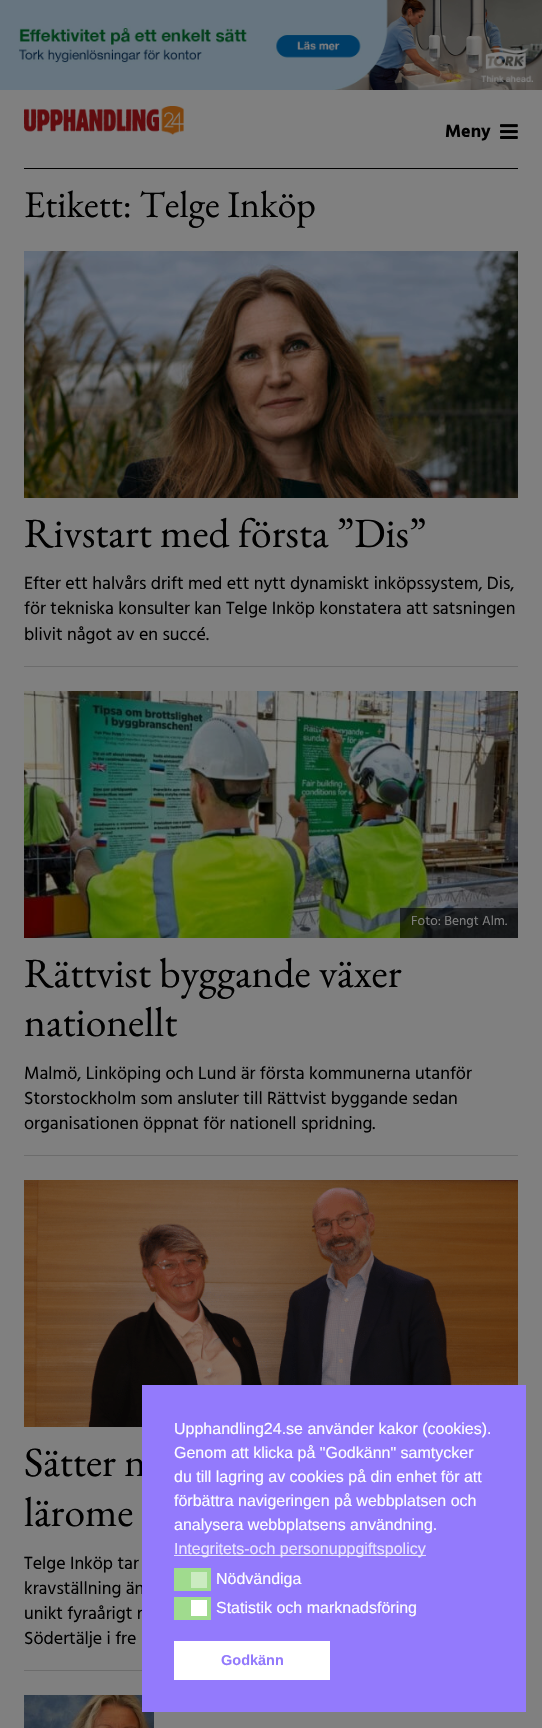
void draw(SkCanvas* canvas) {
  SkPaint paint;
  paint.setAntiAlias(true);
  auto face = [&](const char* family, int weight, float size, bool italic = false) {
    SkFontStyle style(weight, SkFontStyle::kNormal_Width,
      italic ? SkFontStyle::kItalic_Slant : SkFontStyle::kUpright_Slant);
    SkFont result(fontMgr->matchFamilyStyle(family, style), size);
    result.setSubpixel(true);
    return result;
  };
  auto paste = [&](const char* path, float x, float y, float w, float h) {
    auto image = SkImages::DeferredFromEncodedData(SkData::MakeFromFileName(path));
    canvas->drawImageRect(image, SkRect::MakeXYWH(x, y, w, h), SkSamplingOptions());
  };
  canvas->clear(0xff808080);
  paste("img/1.png", 0, 0, 542, 90);
  paint.setColor(0xff000000);
  canvas->drawRect(SkRect::MakeXYWH(24, 168, 494, 1), paint);
  paste("img/2.png", 24, 106, 160, 29);
  paste("img/3.png", 500, 124, 18, 15);
  paint.setColor(0xff6c6c6c);
  canvas->drawRect(SkRect::MakeXYWH(24, 666, 494, 1), paint);
  paste("img/4.png", 24, 251, 494, 247);
  canvas->drawRect(SkRect::MakeXYWH(24, 1155, 494, 1), paint);
  paste("img/5.png", 24, 691, 494, 247);
  paint.setColor(0x99000000);
  canvas->drawRect(SkRect::MakeXYWH(400, 908, 118, 30), paint);
  paint.setColor(0xff6c6c6c);
  canvas->drawRect(SkRect::MakeXYWH(24, 1670, 118, 1), paint);
  paste("img/6.png", 24, 1180, 494, 247);
  paste("img/7.png", 24, 1695, 130, 33);
  auto f0 = face("Hind", 700, 18);
  paint.setColor(0xff000000);
  canvas->drawString("Meny", 445, 137, f0, paint);
  auto f1 = face("EB Garamond", 400, 37.75f);
  canvas->drawString("Etikett: Telge Inköp", 24, 217, f1, paint);
  auto f2 = face("EB Garamond", 400, 41.5f);
  canvas->drawString("Rivstart med första ”Dis”", 24, 547, f2, paint);
  auto f3 = face("Hind", 400, 18);
  {
    const struct { const char* s; float x, y; } items[] = {
      {"Efter ett halvårs drift med ett nytt dynamiskt inköpssystem, Dis,", 24, 589},
      {"för tekniska konsulter kan Telge Inköp konstatera att satsningen", 24, 614},
      {"blivit något av en succé.", 24, 640},
    };
    for (auto [s, x, y] : items) {
      canvas->drawString(s, x, y, f3, paint);
    }
  }
  auto f4 = face("Hind", 400, 13.5f);
  paint.setColor(0xff808080);
  canvas->drawString("Foto: Bengt Alm.", 411, 925, f4, paint);
  paint.setColor(0xff000000);
  canvas->drawString("Rättvist byggande växer", 24, 987, f2, paint);
  canvas->drawString("nationellt", 24, 1036, f2, paint);
  {
    const struct { const char* s; float x, y; } items[] = {
      {"Malmö, Linköping och Lund är första kommunerna utanför", 24, 1079},
      {"Storstockholm som ansluter till Rättvist byggande sedan", 24, 1104},
      {"organisationen öppnat för nationell spridning.", 24, 1129},
    };
    for (auto [s, x, y] : items) {
      canvas->drawString(s, x, y, f3, paint);
    }
  }
  canvas->drawString("Sätter n", 24, 1476, f2, paint);
  canvas->drawString("lärome", 24, 1526, f2, paint);
  {
    const struct { const char* s; float x, y; } items[] = {
      {"Telge Inköp tar", 24, 1569},
      {"kravställning än", 24, 1594},
      {"unikt fyraårigt r", 24, 1619},
      {"Södertälje i fre", 24, 1644},
    };
    for (auto [s, x, y] : items) {
      canvas->drawString(s, x, y, f3, paint);
    }
  }
  paint.setColor(0xff937afc);
  canvas->drawRect(SkRect::MakeXYWH(142, 1385, 384, 327), paint);
  auto f5 = face("Liberation Sans", 400, 16);
  paint.setColor(0xffffffff);
  {
    const struct { const char* s; float x, y; } items[] = {
      {"Upphandling24.se använder kakor (cookies).", 174, 1434},
      {"Genom att klicka på \"Godkänn\" samtycker", 174, 1458},
      {"du till lagring av cookies på din enhet för att", 174, 1482},
      {"förbättra navigeringen på webbplatsen och", 174, 1506},
      {"analysera webbplatsens användning.", 174, 1530},
    };
    for (auto [s, x, y] : items) {
      canvas->drawString(s, x, y, f5, paint);
    }
  }
  paint.setColor(0xffe9e4fe);
  canvas->drawRect(SkRect::MakeXYWH(174, 1555, 252, 1), paint);
  canvas->drawString("Integritets-och personuppgiftspolicy", 174, 1554, f5, paint);
  paint.setColor(0xffa0db8e);
  canvas->drawRect(SkRect::MakeXYWH(174, 1568, 37, 23), paint);
  paint.setColor(0xffcbebc1);
  canvas->drawRect(SkRect::MakeXYWH(191, 1572, 16, 16), paint);
  paint.setColor(0xffffffff);
  canvas->drawString("Nödvändiga", 216, 1584, f5, paint);
  paint.setColor(0xffa0db8e);
  canvas->drawRect(SkRect::MakeXYWH(174, 1597, 37, 23), paint);
  paint.setColor(0xffffffff);
  canvas->drawRect(SkRect::MakeXYWH(191, 1600, 16, 16), paint);
  canvas->drawString("Statistik och marknadsföring", 216, 1613, f5, paint);
  canvas->drawRect(SkRect::MakeXYWH(174, 1641, 156, 39), paint);
  auto f6 = face("Liberation Sans", 700, 14.5f);
  paint.setColor(0xff937afc);
  canvas->drawString("Godkänn", 221, 1665, f6, paint);
}
